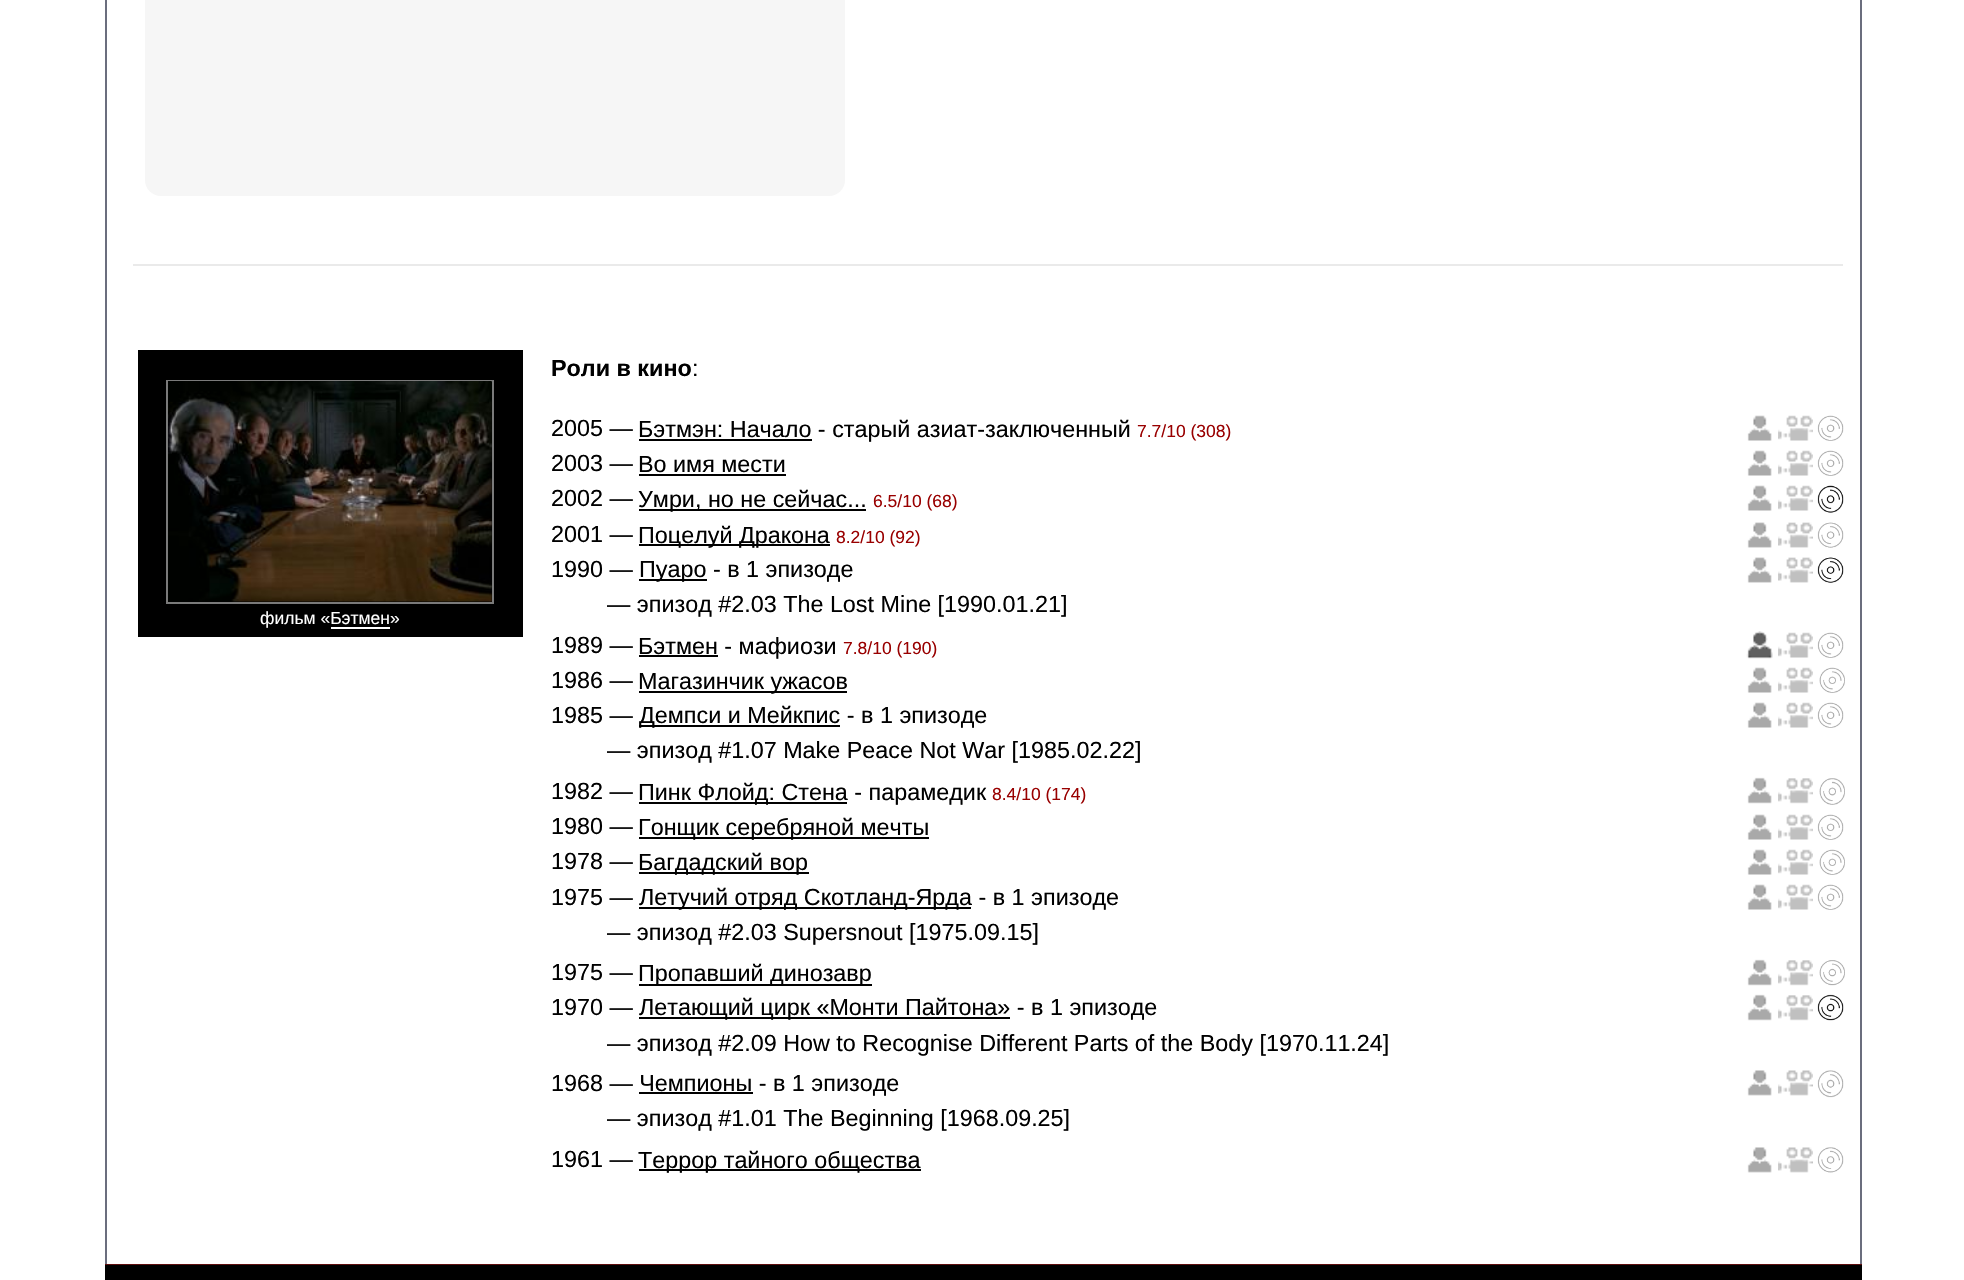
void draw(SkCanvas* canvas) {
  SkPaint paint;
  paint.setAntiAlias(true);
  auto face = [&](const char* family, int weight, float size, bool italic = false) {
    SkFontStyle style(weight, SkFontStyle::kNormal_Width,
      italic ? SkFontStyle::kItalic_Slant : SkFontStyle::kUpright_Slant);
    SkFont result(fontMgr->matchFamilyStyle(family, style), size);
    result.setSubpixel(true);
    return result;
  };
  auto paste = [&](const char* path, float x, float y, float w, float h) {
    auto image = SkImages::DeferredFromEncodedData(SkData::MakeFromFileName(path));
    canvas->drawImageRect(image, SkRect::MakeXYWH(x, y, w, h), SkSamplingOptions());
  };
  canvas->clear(0xffffffff);
  paint.setColor(0xff6b6e7e);
  canvas->drawRect(SkRect::MakeXYWH(105, 0, 2, 1264), paint);
  paint.setColor(0xfff6f6f6);
  canvas->drawRoundRect(SkRect::MakeXYWH(145, -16, 700, 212), 16, 16, paint);
  paint.setColor(0xffeaeaea);
  canvas->drawRect(SkRect::MakeXYWH(133, 264, 1710, 2), paint);
  paint.setColor(0xff000000);
  canvas->drawRect(SkRect::MakeXYWH(138, 350, 385, 287), paint);
  paint.setStroke(true);
  paint.setStrokeWidth(2);
  paint.setColor(0xff7a7a7a);
  canvas->drawRect(SkRect::MakeXYWH(167, 381, 326, 222), paint);
  paste("img/1.png", 168, 381, 324, 221);
  paint.setStroke(false);
  paint.setColor(0xffffffff);
  canvas->drawRect(SkRect::MakeXYWH(331, 627, 59, 2), paint);
  paint.setColor(0xff000000);
  canvas->drawRect(SkRect::MakeXYWH(639, 439, 173, 2), paint);
  paste("img/2.png", 1747, 415, 25, 26);
  paste("img/3.png", 1778, 415, 35, 26);
  paste("img/4.png", 1817, 415, 27, 26);
  canvas->drawRect(SkRect::MakeXYWH(639, 474, 147, 2), paint);
  paste("img/2.png", 1747, 450, 25, 26);
  paste("img/3.png", 1778, 450, 35, 26);
  paste("img/4.png", 1817, 450, 27, 26);
  canvas->drawRect(SkRect::MakeXYWH(639, 509, 227, 2), paint);
  paste("img/2.png", 1747, 485, 25, 26);
  paste("img/3.png", 1778, 485, 35, 26);
  paste("img/5.png", 1817, 485, 27, 28);
  canvas->drawRect(SkRect::MakeXYWH(639, 544, 191, 2), paint);
  paste("img/6.png", 1747, 522, 25, 26);
  paste("img/7.png", 1778, 522, 35, 26);
  paste("img/8.png", 1817, 522, 27, 26);
  canvas->drawRect(SkRect::MakeXYWH(639, 579, 68, 2), paint);
  paste("img/6.png", 1747, 557, 25, 26);
  paste("img/7.png", 1778, 557, 35, 26);
  paste("img/9.png", 1817, 557, 27, 26);
  canvas->drawRect(SkRect::MakeXYWH(639, 655, 79, 2), paint);
  paste("img/10.png", 1746, 631, 27, 28);
  paste("img/3.png", 1778, 632, 35, 26);
  paste("img/4.png", 1817, 632, 27, 26);
  canvas->drawRect(SkRect::MakeXYWH(639, 691, 208, 2), paint);
  paste("img/2.png", 1747, 667, 25, 26);
  paste("img/3.png", 1778, 667, 35, 26);
  paste("img/11.png", 1819, 667, 26, 26);
  canvas->drawRect(SkRect::MakeXYWH(639, 725, 201, 2), paint);
  paste("img/2.png", 1747, 702, 25, 26);
  paste("img/3.png", 1778, 702, 35, 26);
  paste("img/4.png", 1817, 702, 27, 26);
  canvas->drawRect(SkRect::MakeXYWH(639, 802, 208, 2), paint);
  paste("img/12.png", 1747, 777, 25, 27);
  paste("img/13.png", 1778, 778, 35, 26);
  paste("img/14.png", 1819, 778, 26, 27);
  canvas->drawRect(SkRect::MakeXYWH(639, 837, 290, 2), paint);
  paste("img/2.png", 1747, 814, 25, 26);
  paste("img/3.png", 1778, 814, 35, 26);
  paste("img/4.png", 1817, 814, 27, 26);
  canvas->drawRect(SkRect::MakeXYWH(639, 872, 170, 2), paint);
  paste("img/2.png", 1747, 849, 25, 26);
  paste("img/3.png", 1778, 849, 35, 26);
  paste("img/11.png", 1819, 849, 26, 26);
  canvas->drawRect(SkRect::MakeXYWH(639, 907, 332, 2), paint);
  paste("img/2.png", 1747, 884, 25, 26);
  paste("img/3.png", 1778, 884, 35, 26);
  paste("img/4.png", 1817, 884, 27, 26);
  canvas->drawRect(SkRect::MakeXYWH(639, 984, 233, 2), paint);
  paste("img/12.png", 1747, 959, 25, 27);
  paste("img/13.png", 1778, 960, 35, 26);
  paste("img/15.png", 1819, 960, 26, 26);
  canvas->drawRect(SkRect::MakeXYWH(639, 1017, 371, 2), paint);
  paste("img/12.png", 1747, 994, 25, 27);
  paste("img/13.png", 1778, 995, 35, 26);
  paste("img/16.png", 1817, 994, 27, 27);
  canvas->drawRect(SkRect::MakeXYWH(639, 1092, 114, 2), paint);
  paste("img/17.png", 1747, 1070, 25, 26);
  paste("img/18.png", 1778, 1070, 35, 26);
  paste("img/19.png", 1817, 1070, 27, 28);
  canvas->drawRect(SkRect::MakeXYWH(639, 1169, 282, 2), paint);
  paste("img/20.png", 1747, 1147, 25, 26);
  paste("img/21.png", 1778, 1147, 35, 26);
  paste("img/22.png", 1817, 1147, 27, 26);
  {
    const struct { float x, y, w, h; SkColor color; } items[] = {
      {1860, 0, 2, 1264, 0xff6b6e7e},
      {105, 1264, 1757, 1, 0xff5d0e0e},
      {105, 1265, 1757, 15, 0xff000000},
    };
    for (auto [x, y, w, h, color] : items) {
      paint.setColor(color);
      canvas->drawRect(SkRect::MakeXYWH(x, y, w, h), paint);
    }
  }
  auto f0 = face("Liberation Sans", 400, 17.5f);
  paint.setColor(0xffffffff);
  canvas->drawString("фильм «Бэтмен»", 260, 624, f0, paint);
  auto f1 = face("Liberation Sans", 700, 23.35f);
  paint.setColor(0xff000000);
  canvas->drawString("Роли в кино", 551, 376, f1, paint);
  auto f2 = face("Liberation Sans", 400, 23.35f);
  {
    const struct { const char* s; float x, y; } items[] = {
      {":", 692, 376},
      {"2005 —", 551, 436},
      {"Бэтмэн: Начало - старый азиат-заключенный", 638, 437},
    };
    for (auto [s, x, y] : items) {
      canvas->drawString(s, x, y, f2, paint);
    }
  }
  paint.setColor(0xff990000);
  canvas->drawString("7.7/10 (308)", 1137, 437, f0, paint);
  paint.setColor(0xff000000);
  {
    const struct { const char* s; float x, y; } items[] = {
      {"2003 —", 551, 471},
      {"Во имя мести", 638, 472},
      {"2002 —", 551, 506},
      {"Умри, но не сейчас...", 638, 507},
    };
    for (auto [s, x, y] : items) {
      canvas->drawString(s, x, y, f2, paint);
    }
  }
  paint.setColor(0xff990000);
  canvas->drawString("6.5/10 (68)", 873, 507, f0, paint);
  paint.setColor(0xff000000);
  canvas->drawString("2001 —", 551, 542, f2, paint);
  canvas->drawString("Поцелуй Дракона", 638, 543, f2, paint);
  paint.setColor(0xff990000);
  canvas->drawString("8.2/10 (92)", 836, 543, f0, paint);
  paint.setColor(0xff000000);
  {
    const struct { const char* s; float x, y; } items[] = {
      {"1990 —", 551, 577},
      {"Пуаро - в 1 эпизоде", 639, 577},
      {"— эпизод #2.03 The Lost Mine [1990.01.21]", 607, 612},
      {"1989 —", 551, 653},
      {"Бэтмен - мафиози", 638, 654},
    };
    for (auto [s, x, y] : items) {
      canvas->drawString(s, x, y, f2, paint);
    }
  }
  paint.setColor(0xff990000);
  canvas->drawString("7.8/10 (190)", 843, 654, f0, paint);
  paint.setColor(0xff000000);
  {
    const struct { const char* s; float x, y; } items[] = {
      {"1986 —", 551, 688},
      {"Магазинчик ужасов", 638, 689},
      {"1985 —", 551, 723},
      {"Демпси и Мейкпис - в 1 эпизоде", 639, 723},
      {"— эпизод #1.07 Make Peace Not War [1985.02.22]", 607, 758},
      {"1982 —", 551, 799},
      {"Пинк Флойд: Стена - парамедик", 638, 800},
    };
    for (auto [s, x, y] : items) {
      canvas->drawString(s, x, y, f2, paint);
    }
  }
  paint.setColor(0xff990000);
  canvas->drawString("8.4/10 (174)", 992, 800, f0, paint);
  paint.setColor(0xff000000);
  {
    const struct { const char* s; float x, y; } items[] = {
      {"1980 —", 551, 834},
      {"Гонщик серебряной мечты", 638, 835},
      {"1978 —", 551, 869},
      {"Багдадский вор", 638, 870},
      {"1975 —", 551, 905},
      {"Летучий отряд Скотланд-Ярда - в 1 эпизоде", 639, 905},
      {"— эпизод #2.03 Supersnout [1975.09.15]", 607, 940},
      {"1975 —", 551, 980},
      {"Пропавший динозавр", 638, 981},
      {"1970 —", 551, 1015},
      {"Летающий цирк «Монти Пайтона» - в 1 эпизоде", 639, 1015},
      {"— эпизод #2.09 How to Recognise Different Parts of the Body [1970.11.24]", 607, 1051},
      {"1968 — Чемпионы - в 1 эпизоде", 551, 1091},
      {"— эпизод #1.01 The Beginning [1968.09.25]", 607, 1126},
      {"1961 —", 551, 1167},
      {"Террор тайного общества", 638, 1168},
    };
    for (auto [s, x, y] : items) {
      canvas->drawString(s, x, y, f2, paint);
    }
  }
}
